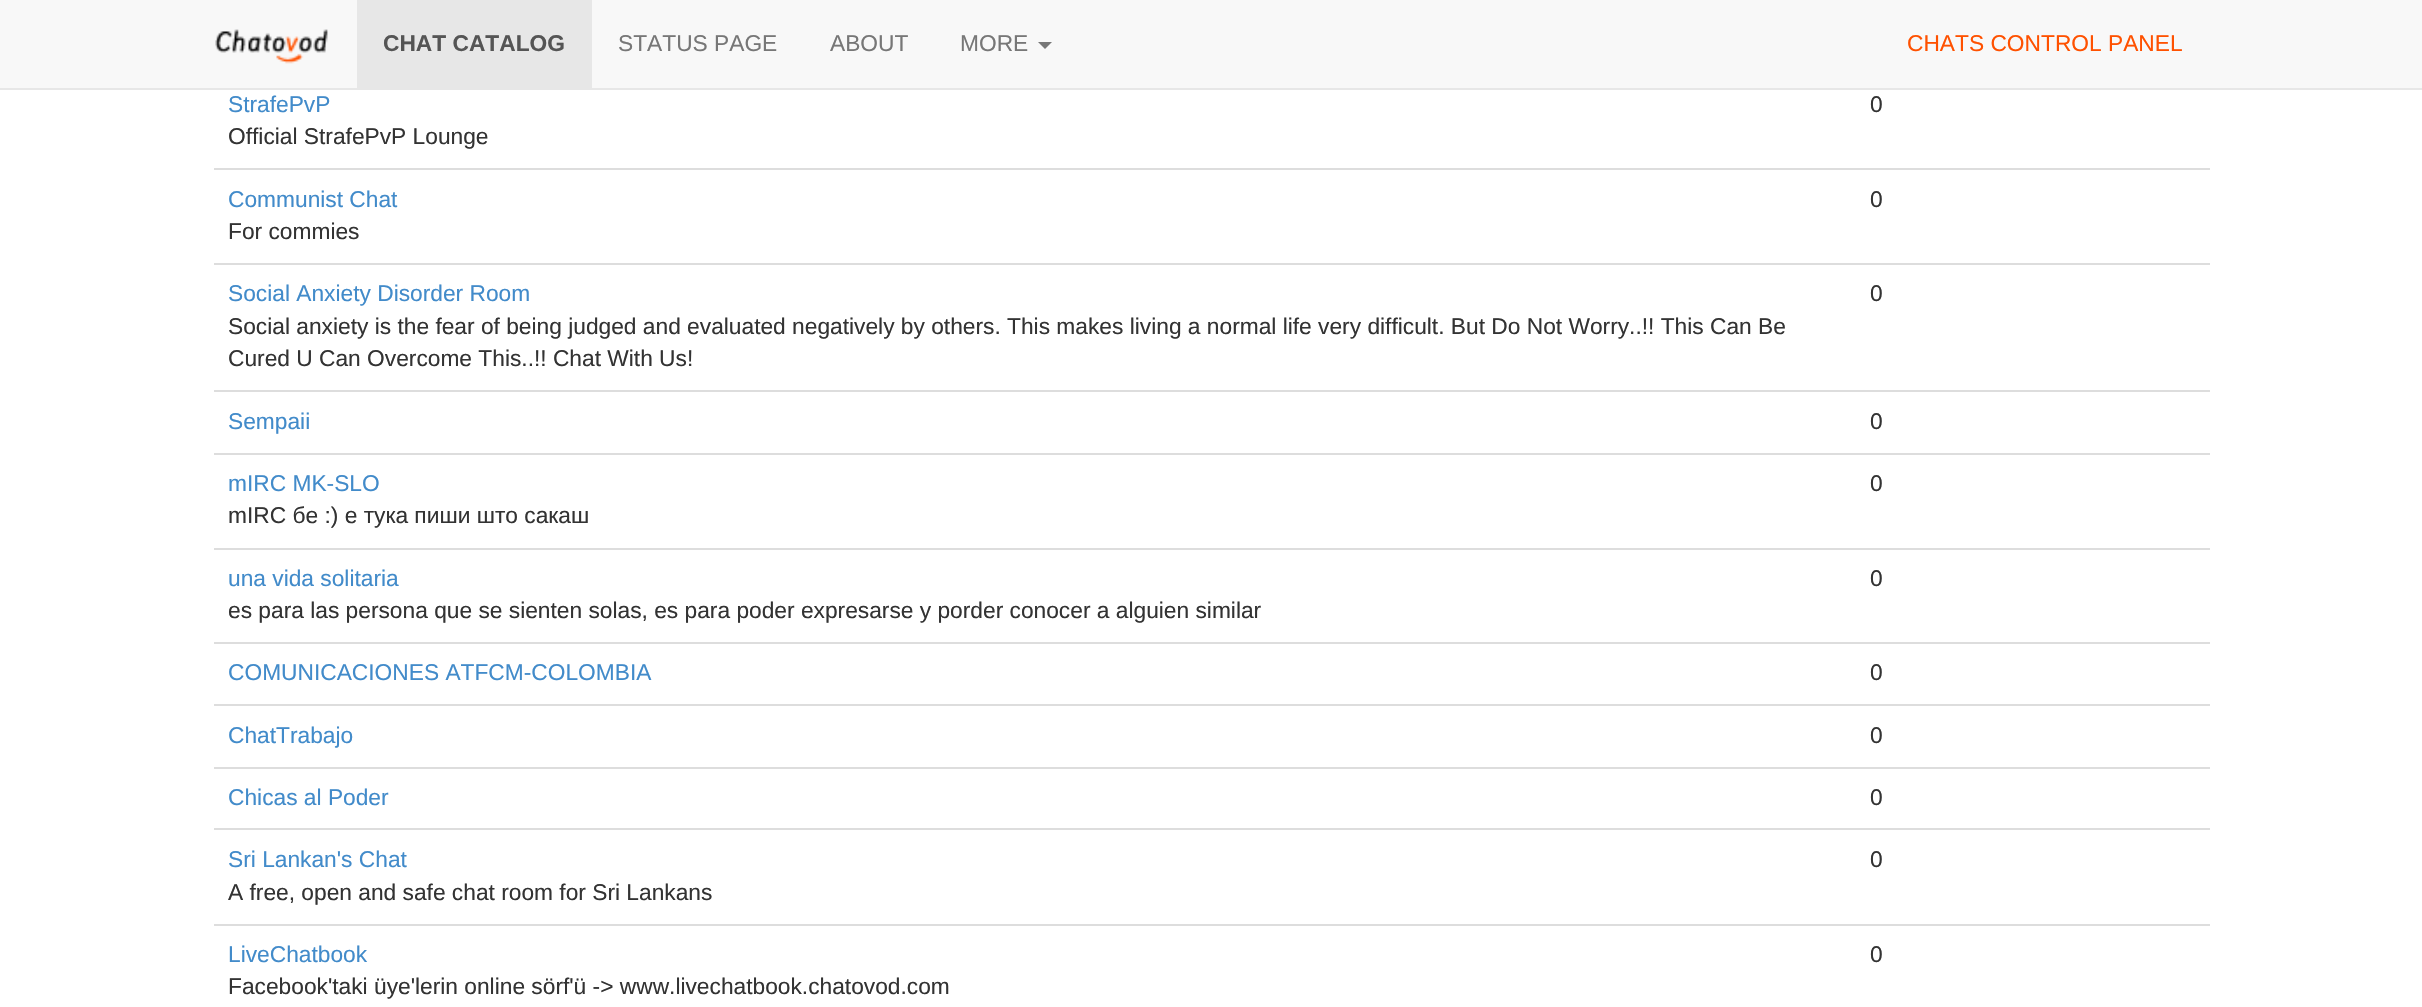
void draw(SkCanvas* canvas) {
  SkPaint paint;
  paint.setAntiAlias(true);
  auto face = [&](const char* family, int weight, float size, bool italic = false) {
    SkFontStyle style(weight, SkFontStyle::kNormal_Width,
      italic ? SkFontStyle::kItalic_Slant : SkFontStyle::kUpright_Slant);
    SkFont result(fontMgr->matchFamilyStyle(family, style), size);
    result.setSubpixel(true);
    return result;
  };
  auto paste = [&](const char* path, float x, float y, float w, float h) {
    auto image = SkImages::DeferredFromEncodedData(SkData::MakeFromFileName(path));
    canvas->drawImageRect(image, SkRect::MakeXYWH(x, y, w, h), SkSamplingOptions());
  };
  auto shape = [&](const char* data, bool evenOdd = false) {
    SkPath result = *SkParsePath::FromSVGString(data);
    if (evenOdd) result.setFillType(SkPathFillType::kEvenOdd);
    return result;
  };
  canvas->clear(0xffffffff);
  paint.setColor(0xfff8f8f8);
  canvas->drawRect(SkRect::MakeXYWH(0, 0, 2422, 88), paint);
  paint.setColor(0xffe7e7e7);
  canvas->drawRect(SkRect::MakeXYWH(0, 88, 2422, 2), paint);
  paste("img/1.png", 215, 29, 113, 35);
  canvas->drawRect(SkRect::MakeXYWH(357, 0, 235, 88), paint);
  paint.setColor(0xff777777);
  canvas->drawPath(shape("M1038 42H1052L1045 49Z"), paint);
  {
    const struct { float x, y, w, h; SkColor color; } items[] = {
      {214, 168, 1996, 2, 0xffdddddd},
      {214, 263, 1996, 2, 0xffdddddd},
      {214, 390, 1996, 2, 0xffdddddd},
      {214, 453, 1996, 2, 0xffdddddd},
      {214, 548, 1996, 2, 0xffdddddd},
      {214, 642, 1996, 2, 0xffdddddd},
      {214, 704, 1996, 2, 0xffdddddd},
      {214, 767, 1996, 2, 0xffdddddd},
      {214, 828, 1996, 2, 0xffdddddd},
      {214, 924, 1996, 2, 0xffdddddd},
    };
    for (auto [x, y, w, h, color] : items) {
      paint.setColor(color);
      canvas->drawRect(SkRect::MakeXYWH(x, y, w, h), paint);
    }
  }
  auto f0 = face("Liberation Sans", 700, 22.75f);
  paint.setColor(0xff555555);
  canvas->drawString("CHAT CATALOG", 383, 51, f0, paint);
  auto f1 = face("Liberation Sans", 400, 22.75f);
  paint.setColor(0xff777777);
  {
    const struct { const char* s; float x, y; } items[] = {
      {"STATUS PAGE", 618, 51},
      {"ABOUT", 830, 51},
      {"MORE", 960, 51},
    };
    for (auto [s, x, y] : items) {
      canvas->drawString(s, x, y, f1, paint);
    }
  }
  paint.setColor(0xffff5100);
  canvas->drawString("CHATS CONTROL PANEL", 1907, 51, f1, paint);
  paint.setColor(0xff428bca);
  canvas->drawString("StrafePvP", 228, 112, f1, paint);
  paint.setColor(0xff333333);
  canvas->drawString("Official StrafePvP Lounge", 228, 144, f1, paint);
  canvas->drawString("0", 1870, 112, f1, paint);
  paint.setColor(0xff428bca);
  canvas->drawString("Communist Chat", 228, 207, f1, paint);
  paint.setColor(0xff333333);
  canvas->drawString("For commies", 228, 239, f1, paint);
  canvas->drawString("0", 1870, 207, f1, paint);
  paint.setColor(0xff428bca);
  canvas->drawString("Social Anxiety Disorder Room", 228, 301, f1, paint);
  paint.setColor(0xff333333);
  {
    const struct { const char* s; float x, y; } items[] = {
      {"Social anxiety is the fear of being judged and evaluated negatively by others. This makes living a normal life very difficult. But Do Not Worry..!! This Can Be", 228, 334},
      {"Cured U Can Overcome This..!! Chat With Us!", 228, 366},
      {"0", 1870, 301},
    };
    for (auto [s, x, y] : items) {
      canvas->drawString(s, x, y, f1, paint);
    }
  }
  paint.setColor(0xff428bca);
  canvas->drawString("Sempaii", 228, 429, f1, paint);
  paint.setColor(0xff333333);
  canvas->drawString("0", 1870, 429, f1, paint);
  paint.setColor(0xff428bca);
  canvas->drawString("mIRC MK-SLO", 228, 491, f1, paint);
  paint.setColor(0xff333333);
  canvas->drawString("mIRC бе :) е тука пиши што сакаш", 228, 523, f1, paint);
  canvas->drawString("0", 1870, 491, f1, paint);
  paint.setColor(0xff428bca);
  canvas->drawString("una vida solitaria", 228, 586, f1, paint);
  paint.setColor(0xff333333);
  canvas->drawString("es para las persona que se sienten solas, es para poder expresarse y porder conocer a alguien similar", 228, 618, f1, paint);
  canvas->drawString("0", 1870, 586, f1, paint);
  paint.setColor(0xff428bca);
  canvas->drawString("COMUNICACIONES ATFCM-COLOMBIA", 228, 680, f1, paint);
  paint.setColor(0xff333333);
  canvas->drawString("0", 1870, 680, f1, paint);
  paint.setColor(0xff428bca);
  canvas->drawString("ChatTrabajo", 228, 743, f1, paint);
  paint.setColor(0xff333333);
  canvas->drawString("0", 1870, 743, f1, paint);
  paint.setColor(0xff428bca);
  canvas->drawString("Chicas al Poder", 228, 805, f1, paint);
  paint.setColor(0xff333333);
  canvas->drawString("0", 1870, 805, f1, paint);
  paint.setColor(0xff428bca);
  canvas->drawString("Sri Lankan's Chat", 228, 867, f1, paint);
  paint.setColor(0xff333333);
  canvas->drawString("A free, open and safe chat room for Sri Lankans", 228, 900, f1, paint);
  canvas->drawString("0", 1870, 867, f1, paint);
  paint.setColor(0xff428bca);
  canvas->drawString("LiveChatbook", 228, 962, f1, paint);
  paint.setColor(0xff333333);
  canvas->drawString("Facebook'taki üye'lerin online sörf'ü -> www.livechatbook.chatovod.com", 228, 994, f1, paint);
  canvas->drawString("0", 1870, 962, f1, paint);
}
